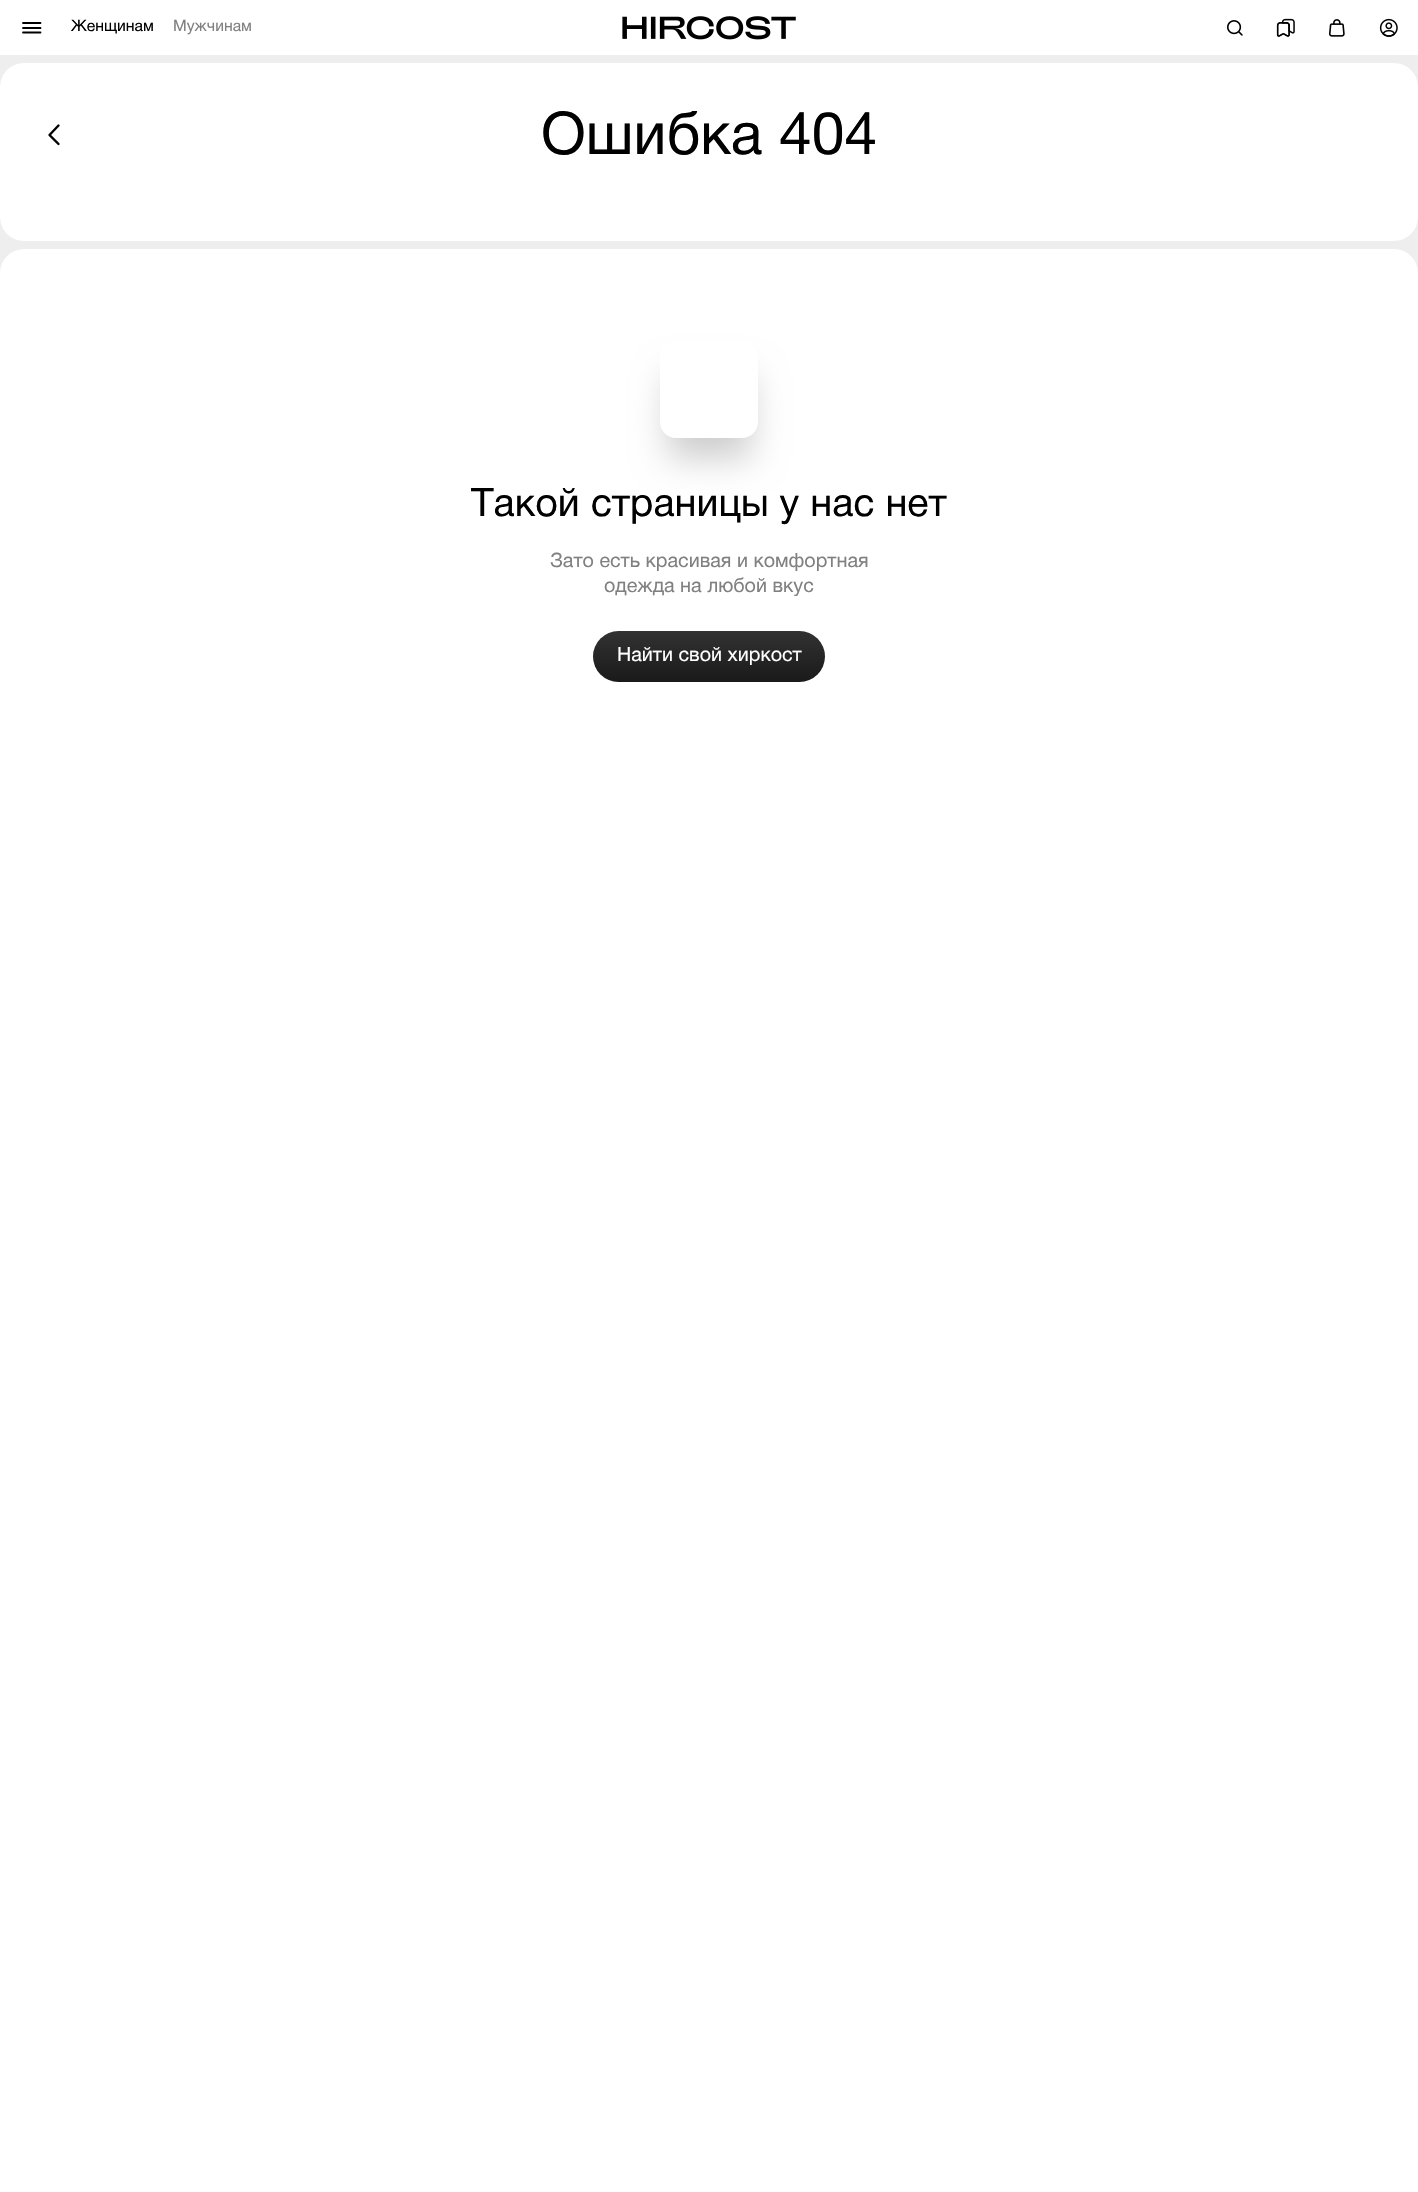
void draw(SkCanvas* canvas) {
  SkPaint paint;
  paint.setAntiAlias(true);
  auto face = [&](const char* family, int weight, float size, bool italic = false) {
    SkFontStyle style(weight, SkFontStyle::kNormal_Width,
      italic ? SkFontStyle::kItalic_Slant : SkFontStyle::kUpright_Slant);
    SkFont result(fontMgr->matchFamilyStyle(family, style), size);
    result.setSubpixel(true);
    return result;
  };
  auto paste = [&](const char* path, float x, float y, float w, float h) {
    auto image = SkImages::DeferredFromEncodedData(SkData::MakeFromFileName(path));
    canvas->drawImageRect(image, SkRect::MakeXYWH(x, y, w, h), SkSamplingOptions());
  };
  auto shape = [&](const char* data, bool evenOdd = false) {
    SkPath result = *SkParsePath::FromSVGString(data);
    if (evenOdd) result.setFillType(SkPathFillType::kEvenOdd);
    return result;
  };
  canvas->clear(0xffeeeeee);
  paint.setColor(0xffffffff);
  canvas->drawRect(SkRect::MakeXYWH(0, 0, 1418, 55), paint);
  paint.setStroke(true);
  paint.setStrokeWidth(1.8f);
  paint.setStrokeCap(SkPaint::kRound_Cap);
  paint.setStrokeJoin(SkPaint::kRound_Join);
  paint.setColor(0xff000000);
  canvas->drawPath(shape("M23 32.5H40.5M23 28H40.5M23 23H40.5"), paint);
  paste("img/1.png", 622, 16, 174, 24);
  paste("img/2.png", 1227, 20, 16, 16);
  paste("img/3.png", 1276, 18, 19, 19);
  paste("img/4.png", 1329, 19, 16, 18);
  paste("img/5.png", 1379, 18, 19, 19);
  paint.setStroke(false);
  paint.setColor(0xffffffff);
  canvas->drawRoundRect(SkRect::MakeXYWH(0, 63, 1418, 178), 24, 24, paint);
  paint.setStroke(true);
  paint.setStrokeWidth(2.4f);
  paint.setColor(0xff000000);
  canvas->drawPath(shape("M58.5 144L49.5 135L58.5 125.5"), paint);
  paint.setStroke(false);
  paint.setColor(0xffffffff);
  canvas->drawRoundRect(SkRect::MakeXYWH(0, 249, 1418, 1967), 24, 24, paint);
  paint.setColor(0x33000000);
  paint.setMaskFilter(SkMaskFilter::MakeBlur(kNormal_SkBlurStyle, 17.5f));
  canvas->drawRect(SkRect::MakeXYWH(668, 375, 83, 83), paint);
  paint.setMaskFilter(nullptr);
  paint.setColor(0xffffffff);
  canvas->drawRoundRect(SkRect::MakeXYWH(660, 340, 98, 98), 16, 16, paint);
  {
    const SkColor colors[] = {0xff323232, 0xff1a1a1a};
    const float stops[] = {0, 1};
    const SkPoint ends[] = {{709, 631}, {709, 682}};
    paint.setShader(SkGradientShader::MakeLinear(ends, colors, stops, 2, SkTileMode::kClamp));
    paint.setAlpha(255);
  }
  canvas->drawRoundRect(SkRect::MakeXYWH(593, 631, 232, 51), 25.5f, 25.5f, paint);
  auto f0 = face("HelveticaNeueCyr", 400, 15.75f);
  paint.setShader(nullptr);
  paint.setColor(0xff000000);
  canvas->drawString("Женщинам", 71, 31, f0, paint);
  paint.setColor(0xff808080);
  canvas->drawString("Мужчинам", 173, 31, f0, paint);
  auto f1 = face("HelveticaNeueCyr", 400, 59);
  paint.setColor(0xff000000);
  canvas->drawString("Ошибка 404", 541, 154, f1, paint);
  auto f2 = face("HelveticaNeueCyr", 400, 39.4f);
  canvas->drawString("Такой страницы у нас нет", 471, 516, f2, paint);
  auto f3 = face("HelveticaNeueCyr", 400, 19.75f);
  paint.setColor(0xff808080);
  canvas->drawString("Зато есть красивая и комфортная", 550, 567, f3, paint);
  canvas->drawString("одежда на любой вкус", 604, 592, f3, paint);
  paint.setColor(0xffffffff);
  canvas->drawString("Найти свой хиркост", 617, 661, f3, paint);
}
